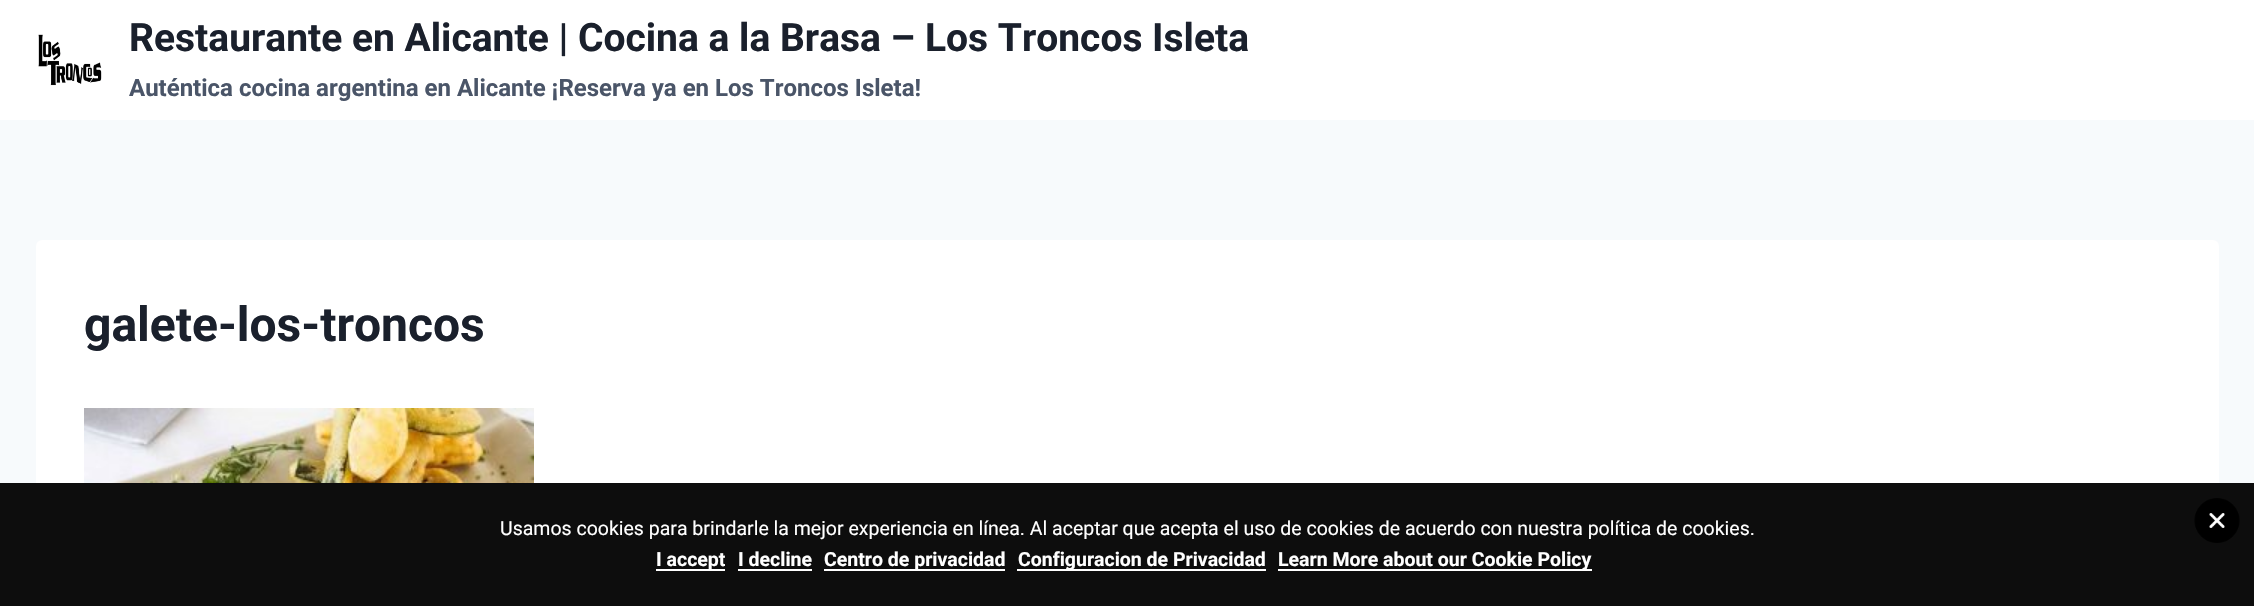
void draw(SkCanvas* canvas) {
  SkPaint paint;
  paint.setAntiAlias(true);
  auto face = [&](const char* family, int weight, float size, bool italic = false) {
    SkFontStyle style(weight, SkFontStyle::kNormal_Width,
      italic ? SkFontStyle::kItalic_Slant : SkFontStyle::kUpright_Slant);
    SkFont result(fontMgr->matchFamilyStyle(family, style), size);
    result.setSubpixel(true);
    return result;
  };
  auto paste = [&](const char* path, float x, float y, float w, float h) {
    auto image = SkImages::DeferredFromEncodedData(SkData::MakeFromFileName(path));
    canvas->drawImageRect(image, SkRect::MakeXYWH(x, y, w, h), SkSamplingOptions());
  };
  canvas->clear(0xfff7fafc);
  paint.setColor(0xffffffff);
  canvas->drawRect(SkRect::MakeXYWH(0, 0, 2254, 120), paint);
  paste("img/1.png", 38, 34, 64, 52);
  canvas->drawRoundRect(SkRect::MakeXYWH(36, 240, 2183, 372), 6, 6, paint);
  paste("img/2.png", 84, 408, 450, 75);
  paint.setColor(0xff0d0d0d);
  canvas->drawRect(SkRect::MakeXYWH(0, 483, 2254, 123), paint);
  paste("img/3.png", 2194, 498, 46, 45);
  {
    const struct { float x, y, w, h; SkColor color; } items[] = {
      {656, 569, 69, 2, 0xffffffff},
      {738, 569, 74, 2, 0xffffffff},
      {824, 569, 181, 2, 0xffffffff},
      {1017, 569, 249, 2, 0xffffffff},
      {1278, 569, 314, 2, 0xffffffff},
    };
    for (auto [x, y, w, h, color] : items) {
      paint.setColor(color);
      canvas->drawRect(SkRect::MakeXYWH(x, y, w, h), paint);
    }
  }
  auto f0 = face("Roboto", 700, 39);
  paint.setColor(0xff1a202c);
  canvas->drawString("Restaurante en Alicante | Cocina a la Brasa – Los Troncos Isleta", 129, 51, f0, paint);
  auto f1 = face("Roboto", 700, 24);
  paint.setColor(0xff4a5568);
  canvas->drawString("Auténtica cocina argentina en Alicante ¡Reserva ya en Los Troncos Isleta!", 129, 96, f1, paint);
  auto f2 = face("Roboto", 700, 48);
  paint.setColor(0xff1a202c);
  canvas->drawString("galete-los-troncos", 84, 341, f2, paint);
  auto f3 = face("Roboto", 400, 19.5f);
  paint.setColor(0xffffffff);
  canvas->drawString("Usamos cookies para brindarle la mejor experiencia en línea. Al aceptar que acepta el uso de cookies de acuerdo con nuestra política de cookies.", 500, 535, f3, paint);
  auto f4 = face("Roboto", 700, 19.5f);
  {
    const struct { const char* s; float x, y; } items[] = {
      {"I accept", 656, 566},
      {"I decline", 738, 566},
      {"Centro de privacidad", 824, 566},
      {"Configuracion de Privacidad", 1018, 566},
      {"Learn More about our Cookie Policy", 1278, 566},
    };
    for (auto [s, x, y] : items) {
      canvas->drawString(s, x, y, f4, paint);
    }
  }
}
